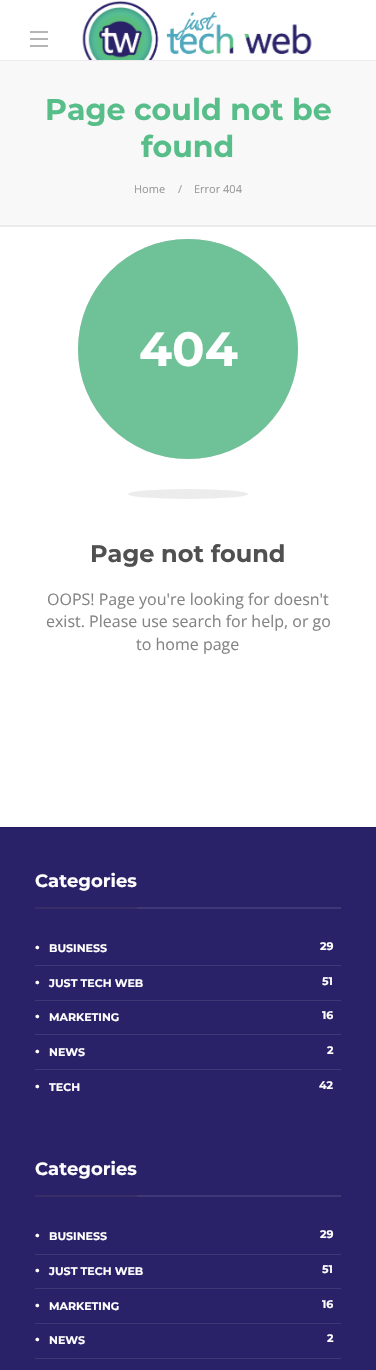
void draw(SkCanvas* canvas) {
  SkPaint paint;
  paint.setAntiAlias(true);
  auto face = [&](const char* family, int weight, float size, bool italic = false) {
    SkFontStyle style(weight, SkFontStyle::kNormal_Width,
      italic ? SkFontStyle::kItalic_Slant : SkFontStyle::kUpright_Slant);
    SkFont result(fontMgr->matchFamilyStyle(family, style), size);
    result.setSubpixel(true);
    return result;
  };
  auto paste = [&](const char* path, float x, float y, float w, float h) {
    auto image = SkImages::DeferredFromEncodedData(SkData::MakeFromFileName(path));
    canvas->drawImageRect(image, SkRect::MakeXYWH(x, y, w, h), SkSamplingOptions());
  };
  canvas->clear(0xffffffff);
  {
    const struct { float x, y, w, h; SkColor color; } items[] = {
      {30, 31, 18, 2, 0xffb5b5b5},
      {30, 38, 18, 2, 0xffb5b5b5},
      {30, 45, 18, 2, 0xffb5b5b5},
    };
    for (auto [x, y, w, h, color] : items) {
      paint.setColor(color);
      canvas->drawRect(SkRect::MakeXYWH(x, y, w, h), paint);
    }
  }
  paste("img/1.png", 82, 1, 230, 59);
  {
    const struct { float x, y, w, h; SkColor color; } items[] = {
      {0, 61, 376, 164, 0xfff8f8f8},
      {0, 60, 376, 1, 0xffebebeb},
      {0, 225, 376, 2, 0xffebebeb},
    };
    for (auto [x, y, w, h, color] : items) {
      paint.setColor(color);
      canvas->drawRect(SkRect::MakeXYWH(x, y, w, h), paint);
    }
  }
  paint.setColor(0xffcccccc);
  canvas->drawCircle(188, 349, 110, paint);
  paint.setColor(0xcc58be89);
  canvas->drawCircle(188, 349, 110, paint);
  paint.setColor(0xffececec);
  canvas->drawOval(SkRect::MakeXYWH(128, 489, 120, 10), paint);
  {
    const struct { float x, y, w, h; SkColor color; } items[] = {
      {0, 828, 376, 542, 0xff2a2268},
      {0, 827, 376, 1, 0xff221b68},
      {137, 907, 204, 2, 0xff3f3877},
      {35, 907, 102, 2, 0xff372e68},
      {35, 965, 306, 1, 0xff3f3877},
      {35, 1000, 306, 1, 0xff3f3877},
      {35, 1034, 306, 1, 0xff3f3877},
      {35, 1069, 306, 1, 0xff3f3877},
      {137, 1195, 204, 2, 0xff3f3877},
      {35, 1195, 102, 2, 0xff372e68},
      {35, 1254, 306, 1, 0xff3f3877},
      {35, 1288, 306, 1, 0xff3f3877},
      {35, 1323, 306, 1, 0xff3f3877},
      {35, 1358, 306, 1, 0xff3f3877},
    };
    for (auto [x, y, w, h, color] : items) {
      paint.setColor(color);
      canvas->drawRect(SkRect::MakeXYWH(x, y, w, h), paint);
    }
  }
  auto f0 = face("Montserrat", 100, 30);
  paint.setColor(0xff58be89);
  canvas->drawString("Page could not be", 45, 120, f0, paint);
  canvas->drawString("found", 141, 157, f0, paint);
  auto f1 = face("Open Sans", 400, 11);
  paint.setColor(0xff999999);
  {
    const struct { const char* s; float x, y; } items[] = {
      {"Home", 134, 193},
      {"/", 178, 193},
      {"Error 404", 194, 193},
    };
    for (auto [s, x, y] : items) {
      canvas->drawString(s, x, y, f1, paint);
    }
  }
  auto f2 = face("Montserrat", 100, 48);
  paint.setColor(0xffffffff);
  canvas->drawString("404", 139, 366, f2, paint);
  auto f3 = face("Montserrat", 100, 24);
  paint.setColor(0xff505050);
  canvas->drawString("Page not found", 90, 562, f3, paint);
  auto f4 = face("Open Sans", 400, 16);
  paint.setColor(0xff848484);
  {
    const struct { const char* s; float x, y; } items[] = {
      {"OOPS! Page you're looking for doesn't", 47, 605},
      {"exist. Please use search for help, or go", 46, 627},
      {"to home page", 136, 650},
    };
    for (auto [s, x, y] : items) {
      canvas->drawString(s, x, y, f4, paint);
    }
  }
  auto f5 = face("Montserrat", 100, 18);
  paint.setColor(0xffffffff);
  canvas->drawString("Categories", 35, 887, f5, paint);
  canvas->drawString(".", 35, 949, f5, paint);
  auto f6 = face("Montserrat", 100, 11);
  canvas->drawString("BUSINESS", 49, 952, f6, paint);
  canvas->drawString("29", 320, 950, f6, paint);
  canvas->drawString(".", 35, 984, f5, paint);
  canvas->drawString("JUST TECH WEB", 49, 987, f6, paint);
  canvas->drawString("51", 322, 985, f6, paint);
  canvas->drawString(".", 35, 1018, f5, paint);
  canvas->drawString("MARKETING", 49, 1021, f6, paint);
  canvas->drawString("16", 322, 1019, f6, paint);
  canvas->drawString(".", 35, 1053, f5, paint);
  canvas->drawString("NEWS", 49, 1056, f6, paint);
  canvas->drawString("2", 327, 1054, f6, paint);
  canvas->drawString(".", 35, 1088, f5, paint);
  canvas->drawString("TECH", 49, 1091, f6, paint);
  canvas->drawString("42", 319, 1089, f6, paint);
  canvas->drawString("Categories", 35, 1175, f5, paint);
  canvas->drawString(".", 35, 1237, f5, paint);
  canvas->drawString("BUSINESS", 49, 1240, f6, paint);
  canvas->drawString("29", 320, 1238, f6, paint);
  canvas->drawString(".", 35, 1272, f5, paint);
  canvas->drawString("JUST TECH WEB", 49, 1275, f6, paint);
  canvas->drawString("51", 322, 1273, f6, paint);
  canvas->drawString(".", 35, 1307, f5, paint);
  canvas->drawString("MARKETING", 49, 1310, f6, paint);
  canvas->drawString("16", 322, 1308, f6, paint);
  canvas->drawString(".", 35, 1341, f5, paint);
  canvas->drawString("NEWS", 49, 1344, f6, paint);
  canvas->drawString("2", 327, 1342, f6, paint);
}
